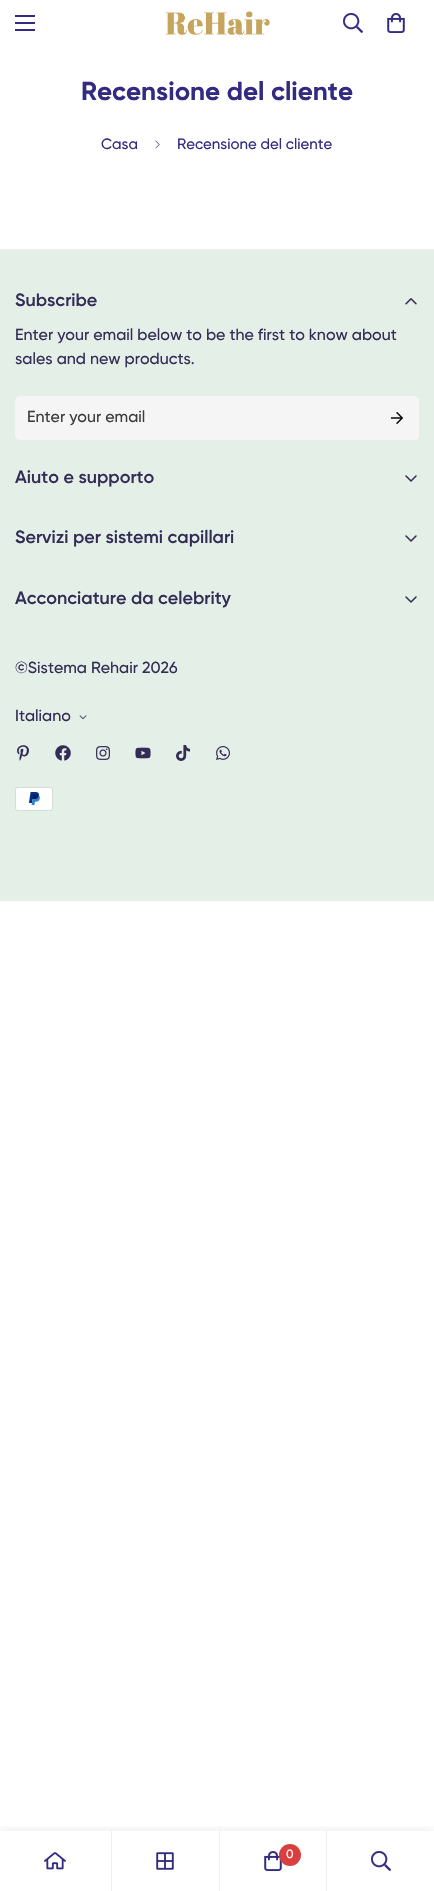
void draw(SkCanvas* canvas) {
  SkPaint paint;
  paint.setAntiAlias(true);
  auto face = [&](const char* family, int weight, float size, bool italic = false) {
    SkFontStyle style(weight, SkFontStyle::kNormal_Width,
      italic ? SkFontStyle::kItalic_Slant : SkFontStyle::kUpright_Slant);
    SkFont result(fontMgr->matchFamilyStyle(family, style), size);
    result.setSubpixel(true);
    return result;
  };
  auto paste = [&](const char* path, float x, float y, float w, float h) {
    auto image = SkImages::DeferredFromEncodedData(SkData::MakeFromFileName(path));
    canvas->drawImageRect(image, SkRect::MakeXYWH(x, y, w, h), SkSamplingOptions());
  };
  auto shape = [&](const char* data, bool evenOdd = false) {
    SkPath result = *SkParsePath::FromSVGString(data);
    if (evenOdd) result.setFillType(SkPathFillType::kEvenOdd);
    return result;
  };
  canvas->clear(0xffffffff);
  {
    const struct { float x, y, w, h; SkColor color; } items[] = {
      {15, 22, 20, 2, 0xff322b81},
      {15, 15, 20, 2, 0xff322b81},
      {15, 29, 20, 2, 0xff322b81},
    };
    for (auto [x, y, w, h, color] : items) {
      paint.setColor(color);
      canvas->drawRect(SkRect::MakeXYWH(x, y, w, h), paint);
    }
  }
  paste("img/1.png", 165, 11, 105, 24);
  paste("img/2.png", 343, 13, 20, 20);
  paste("img/3.png", 387, 13, 18, 20);
  paste("img/4.png", 155, 140, 5, 9);
  paint.setColor(0xffe4efe8);
  canvas->drawRect(SkRect::MakeXYWH(0, 249, 434, 652), paint);
  paste("img/5.png", 405, 298, 12, 7);
  paint.setColor(0xfff5f5f5);
  canvas->drawRoundRect(SkRect::MakeXYWH(15, 396, 404, 44), 5, 5, paint);
  canvas->drawPath(shape("M375 396H414C417 396 419 398 419 401V435C419 438 417 440 414 440H375Z"), paint);
  paste("img/6.png", 390, 412, 13, 12);
  paste("img/7.png", 405, 475, 12, 7);
  paste("img/7.png", 405, 535, 12, 7);
  paste("img/7.png", 405, 596, 12, 7);
  paste("img/8.png", 79, 715, 8, 5);
  paste("img/9.png", 17, 745, 12, 16);
  paste("img/10.png", 55, 745, 16, 16);
  paste("img/11.png", 96, 746, 14, 14);
  paste("img/12.png", 135, 747, 16, 12);
  paste("img/13.png", 176, 745, 14, 16);
  paste("img/14.png", 216, 746, 14, 14);
  paste("img/15.png", 15, 787, 38, 24);
  canvas->save();
  canvas->clipRect(SkRect::MakeXYWH(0, 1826, 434, 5));
  paint.setColor(0x1f322b81);
  paint.setMaskFilter(SkMaskFilter::MakeBlur(kNormal_SkBlurStyle, 5));
  canvas->drawRect(SkRect::MakeXYWH(0, 1831, 434, 60), paint);
  paint.setMaskFilter(nullptr);
  canvas->restore();
  paint.setColor(0xffeeeeee);
  canvas->drawRect(SkRect::MakeXYWH(111, 1831, 1, 60), paint);
  paste("img/16.png", 44, 1852, 22, 18);
  canvas->drawRect(SkRect::MakeXYWH(219, 1831, 1, 60), paint);
  paste("img/17.png", 156, 1852, 18, 18);
  canvas->drawRect(SkRect::MakeXYWH(326, 1831, 1, 60), paint);
  paste("img/3.png", 264, 1851, 18, 20);
  paint.setColor(0xffda3f3f);
  canvas->drawCircle(290, 1855, 11, paint);
  paste("img/2.png", 371, 1851, 20, 20);
  auto f0 = face("Gilroy", 700, 26);
  paint.setColor(0xff322b81);
  canvas->drawString("Recensione del cliente", 81, 100, f0, paint);
  auto f1 = face("Gilroy", 500, 15);
  canvas->drawString("Casa", 101, 149, f1, paint);
  canvas->drawString("Recensione del cliente", 177, 149, f1, paint);
  auto f2 = face("Gilroy", 600, 18);
  paint.setColor(0xff332d55);
  canvas->drawString("Subscribe", 15, 306, f2, paint);
  auto f3 = face("Gilroy", 500, 16);
  canvas->drawString("Enter your email below to be the first to know about", 15, 340, f3, paint);
  canvas->drawString("sales and new products.", 15, 364, f3, paint);
  paint.setColor(0xff3d3d3d);
  canvas->drawString("Enter your email", 27, 422, f3, paint);
  paint.setColor(0xff332d55);
  {
    const struct { const char* s; float x, y; } items[] = {
      {"Aiuto e supporto", 15, 483},
      {"Servizi per sistemi capillari", 15, 543},
      {"Acconciature da celebrity", 15, 604},
    };
    for (auto [s, x, y] : items) {
      canvas->drawString(s, x, y, f2, paint);
    }
  }
  canvas->drawString("©Sistema Rehair 2026", 15, 673, f3, paint);
  canvas->drawString("Italiano", 15, 721, f3, paint);
  auto f4 = face("Gilroy", 500, 12);
  paint.setColor(0xffffffff);
  canvas->drawString("0", 286, 1858, f4, paint);
}
